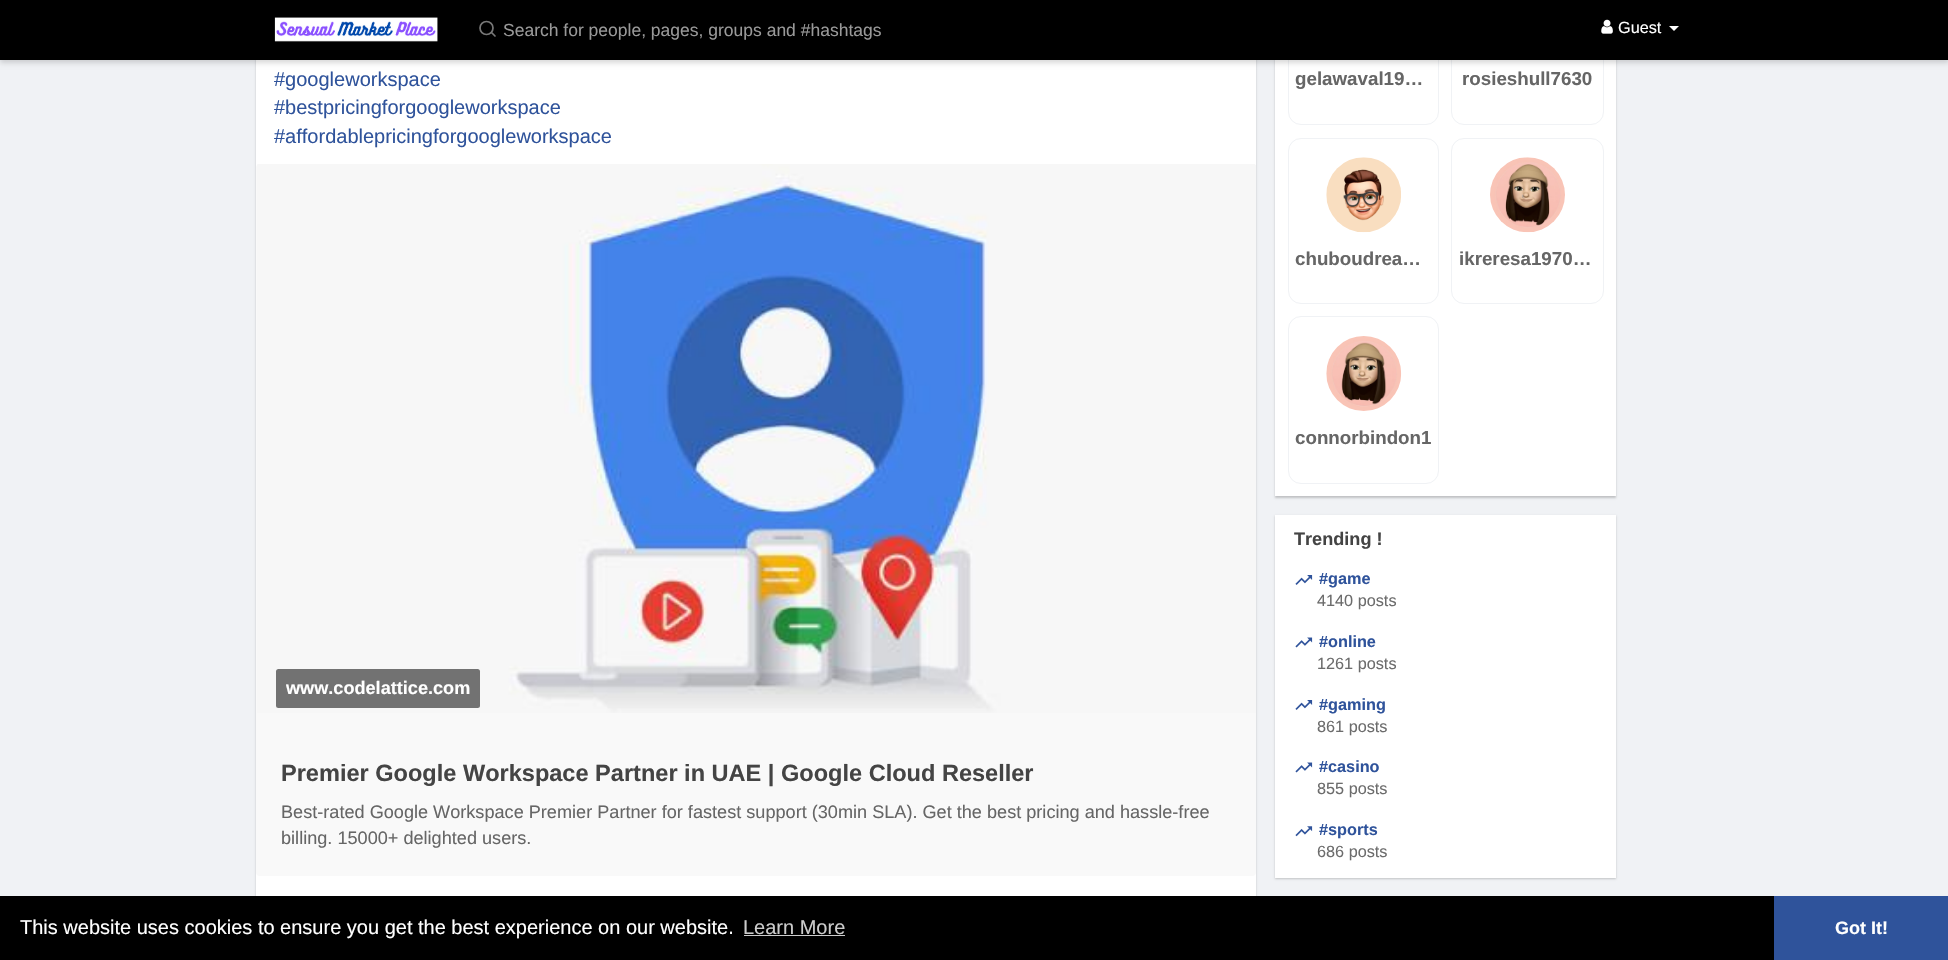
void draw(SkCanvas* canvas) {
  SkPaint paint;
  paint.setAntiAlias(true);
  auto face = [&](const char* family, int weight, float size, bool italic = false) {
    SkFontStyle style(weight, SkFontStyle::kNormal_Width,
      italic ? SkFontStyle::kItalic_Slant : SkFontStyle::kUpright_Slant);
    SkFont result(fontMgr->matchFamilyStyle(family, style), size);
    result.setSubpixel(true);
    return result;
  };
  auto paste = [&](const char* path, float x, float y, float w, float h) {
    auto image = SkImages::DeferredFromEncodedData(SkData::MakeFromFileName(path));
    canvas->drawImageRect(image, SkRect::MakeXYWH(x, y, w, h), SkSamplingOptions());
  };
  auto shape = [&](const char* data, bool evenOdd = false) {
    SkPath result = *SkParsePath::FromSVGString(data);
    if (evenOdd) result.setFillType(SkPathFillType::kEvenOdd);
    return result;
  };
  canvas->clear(0xfff0f2f5);
  paint.setColor(0x33000000);
  paint.setMaskFilter(SkMaskFilter::MakeBlur(kNormal_SkBlurStyle, 1));
  canvas->drawRect(SkRect::MakeXYWH(256, -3, 1000, 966), paint);
  paint.setMaskFilter(nullptr);
  paint.setColor(0xffffffff);
  canvas->drawRect(SkRect::MakeXYWH(256, 60, 1000, 836), paint);
  paint.setColor(0x33000000);
  paint.setMaskFilter(SkMaskFilter::MakeBlur(kNormal_SkBlurStyle, 1));
  canvas->drawRect(SkRect::MakeXYWH(1275, -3, 341, 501), paint);
  paint.setMaskFilter(nullptr);
  paint.setColor(0xffffffff);
  canvas->drawRect(SkRect::MakeXYWH(1275, 60, 341, 436), paint);
  paint.setStroke(true);
  paint.setStrokeWidth(1);
  paint.setColor(0xfff0f2f5);
  canvas->drawRoundRect(SkRect::MakeXYWH(1288.5f, -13.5f, 150, 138), 12.5f, 12.5f, paint);
  canvas->drawRoundRect(SkRect::MakeXYWH(1451.5f, -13.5f, 152, 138), 12.5f, 12.5f, paint);
  paint.setStroke(false);
  paint.setColor(0x26000000);
  paint.setMaskFilter(SkMaskFilter::MakeBlur(kNormal_SkBlurStyle, 2.5f));
  canvas->drawRect(SkRect::MakeXYWH(0, 3, 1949, 60), paint);
  paint.setMaskFilter(nullptr);
  paint.setColor(0xff000000);
  canvas->drawRect(SkRect::MakeXYWH(0, 0, 1948, 60), paint);
  paste("img/1.png", 274, 17, 164, 25);
  paint.setStroke(true);
  paint.setStrokeWidth(1.7f);
  paint.setColor(0xff787878);
  canvas->drawCircle(486.5f, 28, 6.5f, paint);
  paint.setStrokeCap(SkPaint::kRound_Cap);
  paint.setStrokeJoin(SkPaint::kRound_Join);
  canvas->drawPath(shape("M495 36L491.5 32.5"), paint);
  paste("img/2.png", 1601, 19, 12, 15);
  paint.setStroke(false);
  paint.setColor(0xffffffff);
  canvas->drawPath(shape("M1669 26H1679L1674 31Z"), paint);
  paint.setColor(0xfff9f9f9);
  canvas->drawRoundRect(SkRect::MakeXYWH(256, 164, 1000, 712), 4, 4, paint);
  paste("img/3.png", 257, 164, 999, 549);
  paint.setColor(0xff727272);
  canvas->drawRoundRect(SkRect::MakeXYWH(276, 669, 204, 39), 2.5f, 2.5f, paint);
  paint.setStroke(true);
  paint.setStrokeWidth(1);
  paint.setStrokeCap(SkPaint::kButt_Cap);
  paint.setStrokeJoin(SkPaint::kMiter_Join);
  paint.setColor(0xfff0f2f5);
  canvas->drawRoundRect(SkRect::MakeXYWH(1288.5f, 138.5f, 150, 165), 12.5f, 12.5f, paint);
  paste("img/4.png", 1326, 157, 75, 76);
  canvas->drawRoundRect(SkRect::MakeXYWH(1451.5f, 138.5f, 152, 165), 12.5f, 12.5f, paint);
  paste("img/5.png", 1490, 157, 75, 76);
  canvas->drawRoundRect(SkRect::MakeXYWH(1288.5f, 316.5f, 150, 167), 12.5f, 12.5f, paint);
  paste("img/6.png", 1326, 336, 76, 75);
  paint.setStroke(false);
  paint.setColor(0x33000000);
  paint.setMaskFilter(SkMaskFilter::MakeBlur(kNormal_SkBlurStyle, 1));
  canvas->drawRect(SkRect::MakeXYWH(1275, 516, 341, 363), paint);
  paint.setMaskFilter(nullptr);
  paint.setColor(0xffffffff);
  canvas->drawRect(SkRect::MakeXYWH(1275, 515, 341, 363), paint);
  paste("img/7.png", 1295, 575, 18, 10);
  paste("img/8.png", 1295, 637, 18, 11);
  paste("img/7.png", 1295, 700, 18, 10);
  paste("img/8.png", 1295, 762, 18, 11);
  paste("img/9.png", 1295, 826, 18, 11);
  {
    const struct { float x, y, w, h; SkColor color; } items[] = {
      {0, 896, 1774, 64, 0xff000000},
      {744, 935, 101, 1, 0xffcccccc},
      {1774, 896, 174, 64, 0xff2f539b},
    };
    for (auto [x, y, w, h, color] : items) {
      paint.setColor(color);
      canvas->drawRect(SkRect::MakeXYWH(x, y, w, h), paint);
    }
  }
  auto f0 = face("Liberation Sans", 400, 17.5f);
  paint.setColor(0xff999999);
  canvas->drawString("Search for people, pages, groups and #hashtags", 503, 36, f0, paint);
  auto f1 = face("Liberation Sans", 400, 16.25f);
  paint.setColor(0xffffffff);
  canvas->drawString("Guest", 1618, 33, f1, paint);
  auto f2 = face("Liberation Sans", 400, 20);
  paint.setColor(0xff2f539b);
  {
    const struct { const char* s; float x, y; } items[] = {
      {"#googleworkspace", 274, 86},
      {"#bestpricingforgoogleworkspace", 274, 114},
      {"#affordablepricingforgoogleworkspace", 274, 143},
    };
    for (auto [s, x, y] : items) {
      canvas->drawString(s, x, y, f2, paint);
    }
  }
  auto f3 = face("Liberation Sans", 700, 18.12f);
  paint.setColor(0xffffffff);
  canvas->drawString("www.codelattice.com", 286, 694, f3, paint);
  auto f4 = face("Liberation Sans", 700, 23.55f);
  paint.setColor(0xff444444);
  canvas->drawString("Premier Google Workspace Partner in UAE | Google Cloud Reseller", 281, 781, f4, paint);
  auto f5 = face("Liberation Sans", 400, 18.12f);
  paint.setColor(0xff666666);
  canvas->drawString("Best-rated Google Workspace Premier Partner for fastest support (30min SLA). Get the best pricing and hassle-free", 281, 818, f5, paint);
  canvas->drawString("billing. 15000+ delighted users.", 281, 844, f5, paint);
  auto f6 = face("Liberation Sans", 700, 18.75f);
  {
    const struct { const char* s; float x, y; } items[] = {
      {"gelawaval19…", 1295, 85},
      {"rosieshull7630", 1462, 85},
      {"chuboudrea…", 1295, 265},
      {"ikreresa1970…", 1459, 265},
      {"connorbindon1", 1295, 444},
    };
    for (auto [s, x, y] : items) {
      canvas->drawString(s, x, y, f6, paint);
    }
  }
  paint.setColor(0xff444444);
  canvas->drawString("Trending !", 1294, 545, f3, paint);
  auto f7 = face("Liberation Sans", 700, 16.25f);
  paint.setColor(0xff2f539b);
  canvas->drawString("#game", 1319, 584, f7, paint);
  paint.setColor(0xff6c6c6c);
  canvas->drawString("4140 posts", 1317, 606, f1, paint);
  paint.setColor(0xff2f539b);
  canvas->drawString("#online", 1319, 647, f7, paint);
  paint.setColor(0xff6c6c6c);
  canvas->drawString("1261 posts", 1317, 669, f1, paint);
  paint.setColor(0xff2f539b);
  canvas->drawString("#gaming", 1319, 710, f7, paint);
  paint.setColor(0xff6c6c6c);
  canvas->drawString("861 posts", 1317, 732, f1, paint);
  paint.setColor(0xff2f539b);
  canvas->drawString("#casino", 1319, 772, f7, paint);
  paint.setColor(0xff6c6c6c);
  canvas->drawString("855 posts", 1317, 794, f1, paint);
  paint.setColor(0xff2f539b);
  canvas->drawString("#sports", 1319, 835, f7, paint);
  paint.setColor(0xff6c6c6c);
  canvas->drawString("686 posts", 1317, 857, f1, paint);
  paint.setColor(0xffffffff);
  canvas->drawString("This website uses cookies to ensure you get the best experience on our website.", 20, 934, f2, paint);
  paint.setColor(0xffcccccc);
  canvas->drawString("Learn More", 743, 934, f2, paint);
  auto f8 = face("Liberation Sans", 700, 18);
  paint.setColor(0xffffffff);
  canvas->drawString("Got It!", 1835, 934, f8, paint);
}
